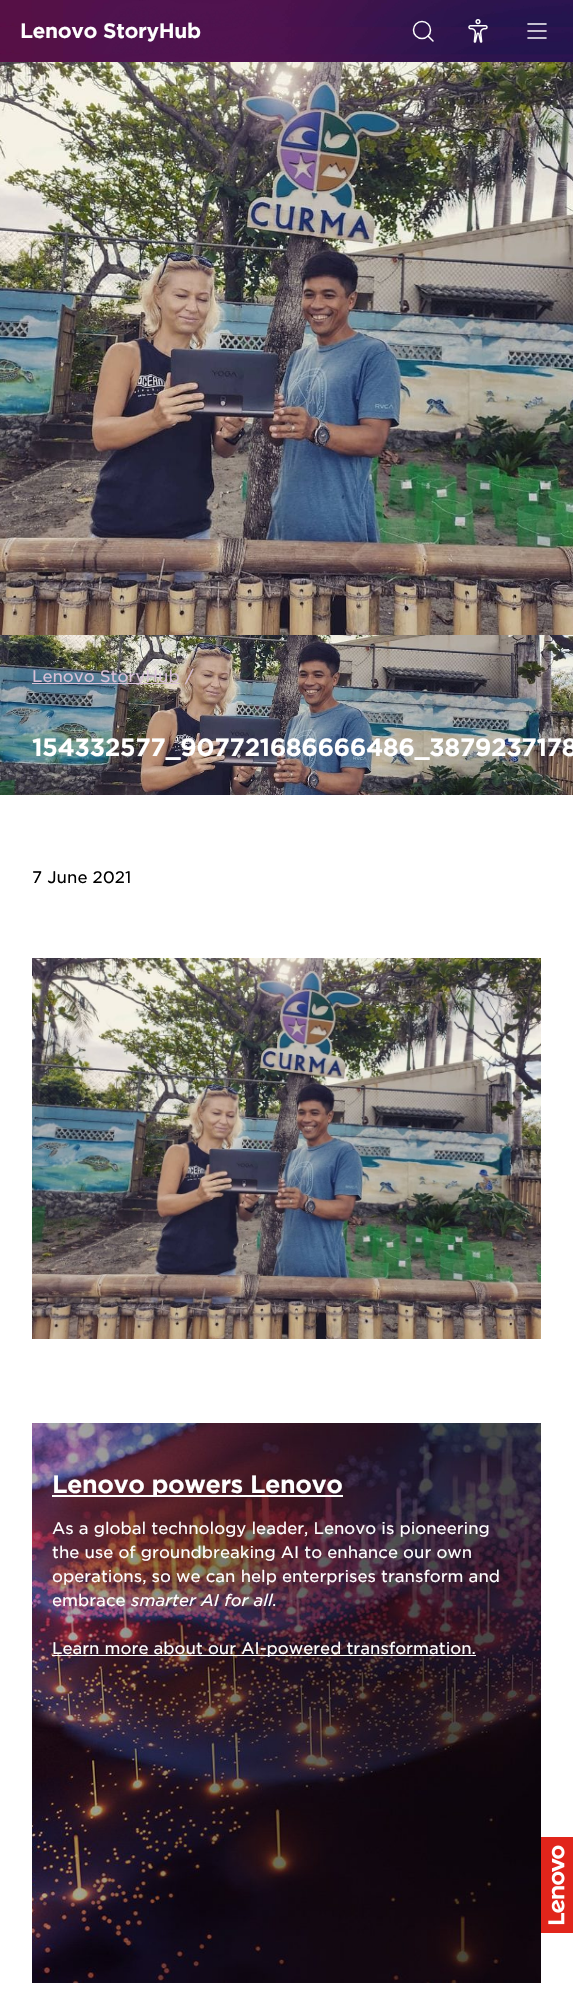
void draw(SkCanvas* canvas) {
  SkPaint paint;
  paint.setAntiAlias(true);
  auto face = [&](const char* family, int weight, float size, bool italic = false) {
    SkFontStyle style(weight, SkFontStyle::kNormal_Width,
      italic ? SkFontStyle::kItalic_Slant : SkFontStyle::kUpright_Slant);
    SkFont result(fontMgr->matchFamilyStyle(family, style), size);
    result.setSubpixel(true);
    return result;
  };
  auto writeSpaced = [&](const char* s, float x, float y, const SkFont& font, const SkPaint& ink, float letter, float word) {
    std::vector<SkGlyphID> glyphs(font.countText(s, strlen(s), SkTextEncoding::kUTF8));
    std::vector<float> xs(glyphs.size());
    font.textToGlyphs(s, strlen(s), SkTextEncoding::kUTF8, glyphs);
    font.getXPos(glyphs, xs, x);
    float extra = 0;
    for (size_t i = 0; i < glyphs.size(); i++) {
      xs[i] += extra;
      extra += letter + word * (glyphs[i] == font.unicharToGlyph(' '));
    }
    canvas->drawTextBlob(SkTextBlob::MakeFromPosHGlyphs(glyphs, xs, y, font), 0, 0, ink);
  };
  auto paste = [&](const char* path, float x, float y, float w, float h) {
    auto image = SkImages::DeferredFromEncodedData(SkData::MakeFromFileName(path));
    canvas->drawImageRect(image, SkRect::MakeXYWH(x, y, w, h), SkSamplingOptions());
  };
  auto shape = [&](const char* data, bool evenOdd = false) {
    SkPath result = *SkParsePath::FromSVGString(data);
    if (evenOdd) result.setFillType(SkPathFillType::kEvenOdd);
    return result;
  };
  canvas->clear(0xffffffff);
  paste("img/1.png", 0, 0, 573, 62);
  paint.setStroke(true);
  paint.setStrokeWidth(1.5f);
  paint.setColor(0xffffffff);
  canvas->drawCircle(422, 30, 8.5f, paint);
  paint.setStrokeCap(SkPaint::kRound_Cap);
  paint.setStrokeJoin(SkPaint::kRound_Join);
  canvas->drawPath(shape("M433 41L428 36"), paint);
  paste("img/2.png", 468, 19, 20, 24);
  paste("img/3.png", 527, 23, 20, 16);
  paste("img/4.png", 0, 62, 573, 573);
  paste("img/5.png", 0, 635, 573, 160);
  paint.setStroke(false);
  paint.setColor(0xffd9c1d8);
  canvas->drawRect(SkRect::MakeXYWH(32, 683, 148, 1), paint);
  paste("img/6.png", 32, 958, 509, 381);
  paste("img/7.png", 32, 1423, 509, 560);
  {
    const struct { float x, y, w, h; SkColor color; } items[] = {
      {52, 1495, 291, 2, 0xffffffff},
      {52, 1655, 424, 1, 0xffffffff},
      {541, 1837, 32, 96, 0xffe1251b},
    };
    for (auto [x, y, w, h, color] : items) {
      paint.setColor(color);
      canvas->drawRect(SkRect::MakeXYWH(x, y, w, h), paint);
    }
  }
  paste("img/8.png", 548, 1845, 17, 80);
  auto f0 = face("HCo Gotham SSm", 700, 20);
  paint.setColor(0xffffffff);
  writeSpaced("Lenovo StoryHub", 20, 38, f0, paint, -0.4f, 0);
  auto f1 = face("HCo Gotham SSm", 400, 16);
  paint.setColor(0xffd9c1d8);
  canvas->drawString("Lenovo StoryHub", 32, 682, f1, paint);
  canvas->drawString("/", 185, 682, f1, paint);
  auto f2 = face("HCo Gotham SSm", 700, 24);
  paint.setColor(0xffffffff);
  writeSpaced("154332577_907721686666486_3879237178", 32, 756, f2, paint, -0.5f, 0);
  paint.setColor(0xff000000);
  canvas->drawString("7 June 2021", 32, 883, f1, paint);
  paint.setColor(0xffffffff);
  writeSpaced("Lenovo powers Lenovo", 52, 1493, f2, paint, -0.5f, 0);
  {
    const struct { const char* s; float x, y; } items[] = {
      {"As a global technology leader, Lenovo is pioneering", 52, 1534},
      {"the use of groundbreaking AI to enhance our own", 52, 1558},
      {"operations, so we can help enterprises transform and", 52, 1582},
      {"embrace", 52, 1606},
    };
    for (auto [s, x, y] : items) {
      canvas->drawString(s, x, y, f1, paint);
    }
  }
  auto f3 = face("HCo Gotham SSm", 400, 16, true);
  canvas->drawString("smarter AI for all", 131, 1606, f3, paint);
  canvas->drawString(".", 272, 1606, f1, paint);
  canvas->drawString("Learn more about our AI-powered transformation.", 52, 1654, f1, paint);
}
